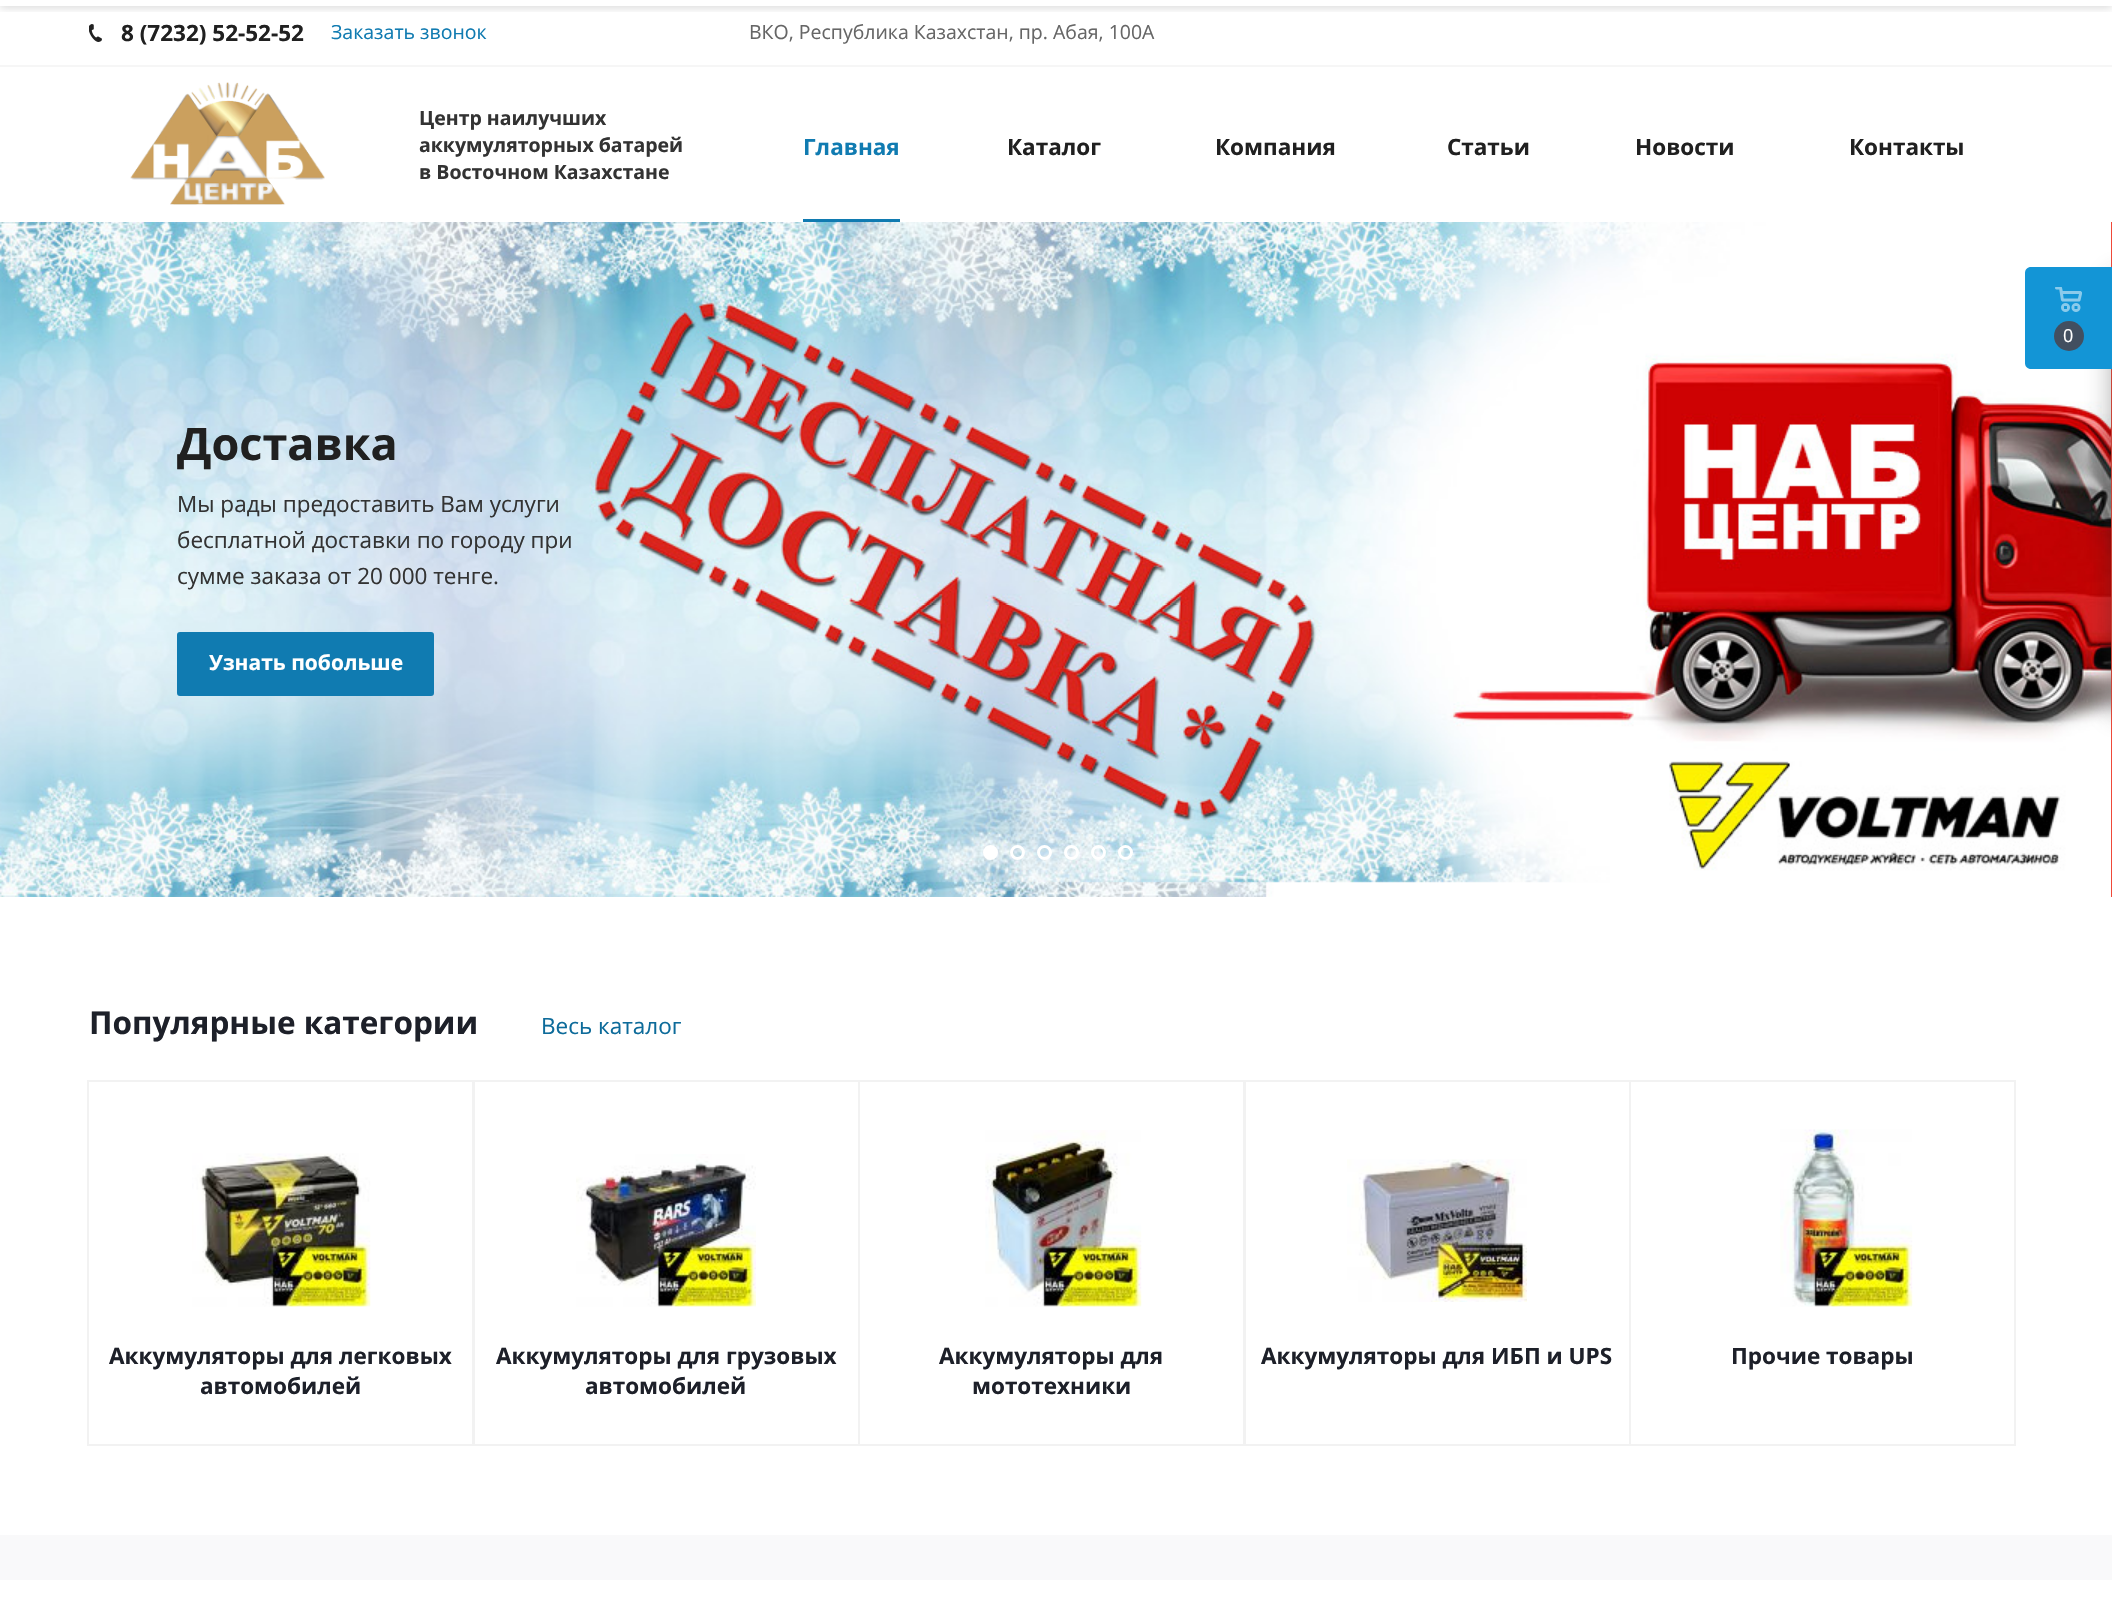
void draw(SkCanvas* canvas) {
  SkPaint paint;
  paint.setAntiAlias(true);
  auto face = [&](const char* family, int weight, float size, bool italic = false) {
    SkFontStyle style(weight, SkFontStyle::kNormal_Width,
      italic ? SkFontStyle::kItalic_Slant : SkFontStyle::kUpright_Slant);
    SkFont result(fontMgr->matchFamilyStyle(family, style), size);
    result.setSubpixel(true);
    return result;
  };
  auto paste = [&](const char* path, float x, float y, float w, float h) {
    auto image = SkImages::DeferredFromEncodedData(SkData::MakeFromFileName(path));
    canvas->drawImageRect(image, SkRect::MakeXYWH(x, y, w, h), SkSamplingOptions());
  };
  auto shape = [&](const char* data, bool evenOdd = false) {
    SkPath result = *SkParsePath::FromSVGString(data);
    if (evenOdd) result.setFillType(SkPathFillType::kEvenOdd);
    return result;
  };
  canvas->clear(0xffffffff);
  canvas->save();
  canvas->clipRect(SkRect::MakeXYWH(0, 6, 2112, 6));
  paint.setColor(0x24000000);
  paint.setMaskFilter(SkMaskFilter::MakeBlur(kNormal_SkBlurStyle, 4));
  canvas->drawRect(SkRect::MakeXYWH(0, -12, 2112, 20), paint);
  paint.setMaskFilter(nullptr);
  canvas->restore();
  paint.setColor(0xfff6f6f6);
  canvas->drawRect(SkRect::MakeXYWH(0, 65, 2112, 2), paint);
  paste("img/1.png", 89, 24, 13, 18);
  paste("img/2.png", 130, 82, 195, 123);
  paint.setColor(0xff107bb1);
  canvas->drawRect(SkRect::MakeXYWH(803, 219, 97, 3), paint);
  paste("img/3.png", 0, 222, 2111, 675);
  canvas->drawRoundRect(SkRect::MakeXYWH(178, 633, 255, 62), 2, 2, paint);
  paint.setStroke(true);
  paint.setStrokeWidth(2);
  canvas->drawRoundRect(SkRect::MakeXYWH(178, 633, 255, 62), 2, 2, paint);
  paste("img/4.png", 2111, 222, 1, 675);
  paint.setStroke(false);
  paint.setColor(0xffffffff);
  canvas->drawCircle(990.5f, 852.5f, 6, paint);
  paint.setStroke(true);
  paint.setStrokeWidth(3);
  canvas->drawCircle(990.5f, 852.5f, 6, paint);
  canvas->drawCircle(1017.5f, 852.5f, 6, paint);
  canvas->drawCircle(1044.5f, 852.5f, 6, paint);
  canvas->drawCircle(1071.5f, 852.5f, 6, paint);
  canvas->drawCircle(1098.5f, 852.5f, 6, paint);
  canvas->drawCircle(1125.5f, 852.5f, 6, paint);
  paint.setStrokeWidth(2);
  paint.setColor(0xfff2f2f2);
  canvas->drawRect(SkRect::MakeXYWH(88, 1081, 385, 364), paint);
  paste("img/5.png", 192, 1153, 179, 154);
  canvas->drawRect(SkRect::MakeXYWH(474, 1081, 385, 364), paint);
  paste("img/6.png", 576, 1154, 180, 153);
  canvas->drawRect(SkRect::MakeXYWH(859, 1081, 385, 364), paint);
  paste("img/7.png", 985, 1130, 157, 177);
  canvas->drawRect(SkRect::MakeXYWH(1245, 1081, 385, 364), paint);
  paste("img/8.png", 1347, 1159, 180, 143);
  canvas->drawRect(SkRect::MakeXYWH(1630, 1081, 385, 364), paint);
  paste("img/9.png", 1780, 1129, 133, 178);
  paint.setStroke(false);
  paint.setColor(0xfff9f9fa);
  canvas->drawRect(SkRect::MakeXYWH(0, 1535, 2112, 45), paint);
  paint.setColor(0x662c2c2c);
  paint.setMaskFilter(SkMaskFilter::MakeBlur(kNormal_SkBlurStyle, 13.5f));
  canvas->drawRoundRect(SkRect::MakeXYWH(2112, 276, 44, 437), 3, 3, paint);
  paint.setMaskFilter(nullptr);
  paint.setColor(0xff1395d6);
  canvas->drawPath(shape("M2031 267H2112V369H2031C2027.5 369 2025 366.5 2025 363V273C2025 269.5 2027.5 267 2031 267Z"), paint);
  paste("img/10.png", 2055, 287, 27, 25);
  paint.setColor(0xff424f60);
  canvas->drawCircle(2069, 336, 15, paint);
  auto f0 = face("Open Sans", 700, 22.5f);
  paint.setColor(0xff202020);
  canvas->drawString("8 (7232) 52-52-52", 121, 41, f0, paint);
  auto f1 = face("Open Sans", 400, 19.5f);
  paint.setColor(0xff107bb1);
  canvas->drawString("Заказать звонок", 331, 39, f1, paint);
  paint.setColor(0xff666666);
  canvas->drawString("ВКО, Республика Казахстан, пр. Абая, 100А", 749, 39, f1, paint);
  auto f2 = face("Open Sans", 700, 19.5f);
  paint.setColor(0xff333333);
  {
    const struct { const char* s; float x, y; } items[] = {
      {"Центр наилучших", 419, 125},
      {"аккумуляторных батарей", 419, 152},
      {"в Восточном Казахстане", 419, 179},
    };
    for (auto [s, x, y] : items) {
      canvas->drawString(s, x, y, f2, paint);
    }
  }
  paint.setColor(0xff107bb1);
  canvas->drawString("Главная", 803, 155, f0, paint);
  paint.setColor(0xff202020);
  {
    const struct { const char* s; float x, y; } items[] = {
      {"Каталог", 1007, 155},
      {"Компания", 1215, 155},
      {"Статьи", 1447, 155},
      {"Новости", 1635, 155},
      {"Контакты", 1849, 155},
    };
    for (auto [s, x, y] : items) {
      canvas->drawString(s, x, y, f0, paint);
    }
  }
  auto f3 = face("Open Sans", 700, 45);
  canvas->drawString("Доставка", 177, 460, f3, paint);
  auto f4 = face("Open Sans", 400, 22.5f);
  paint.setColor(0xff333333);
  {
    const struct { const char* s; float x, y; } items[] = {
      {"Мы рады предоставить Вам услуги", 177, 512},
      {"бесплатной доставки по городу при", 177, 548},
      {"сумме заказа от 20 000 тенге.", 177, 584},
    };
    for (auto [s, x, y] : items) {
      canvas->drawString(s, x, y, f4, paint);
    }
  }
  auto f5 = face("Open Sans", 700, 21);
  paint.setColor(0xffffffff);
  canvas->drawString("Узнать побольше", 209, 670, f5, paint);
  auto f6 = face("Open Sans", 700, 31.5f);
  paint.setColor(0xff1d2029);
  canvas->drawString("Популярные категории", 89, 1034, f6, paint);
  paint.setColor(0xff0d6b9a);
  canvas->drawString("Весь каталог", 541, 1034, f4, paint);
  paint.setColor(0xff1d2029);
  {
    const struct { const char* s; float x, y; } items[] = {
      {"Аккумуляторы для легковых", 109, 1364},
      {"автомобилей", 200, 1394},
      {"Аккумуляторы для грузовых", 496, 1364},
      {"автомобилей", 585, 1394},
      {"Аккумуляторы для", 939, 1364},
      {"мототехники", 972, 1394},
      {"Аккумуляторы для ИБП и UPS", 1261, 1364},
      {"Прочие товары", 1731, 1364},
    };
    for (auto [s, x, y] : items) {
      canvas->drawString(s, x, y, f0, paint);
    }
  }
  auto f7 = face("Open Sans", 400, 18);
  paint.setColor(0xffffffff);
  canvas->drawString("0", 2063, 342, f7, paint);
}
